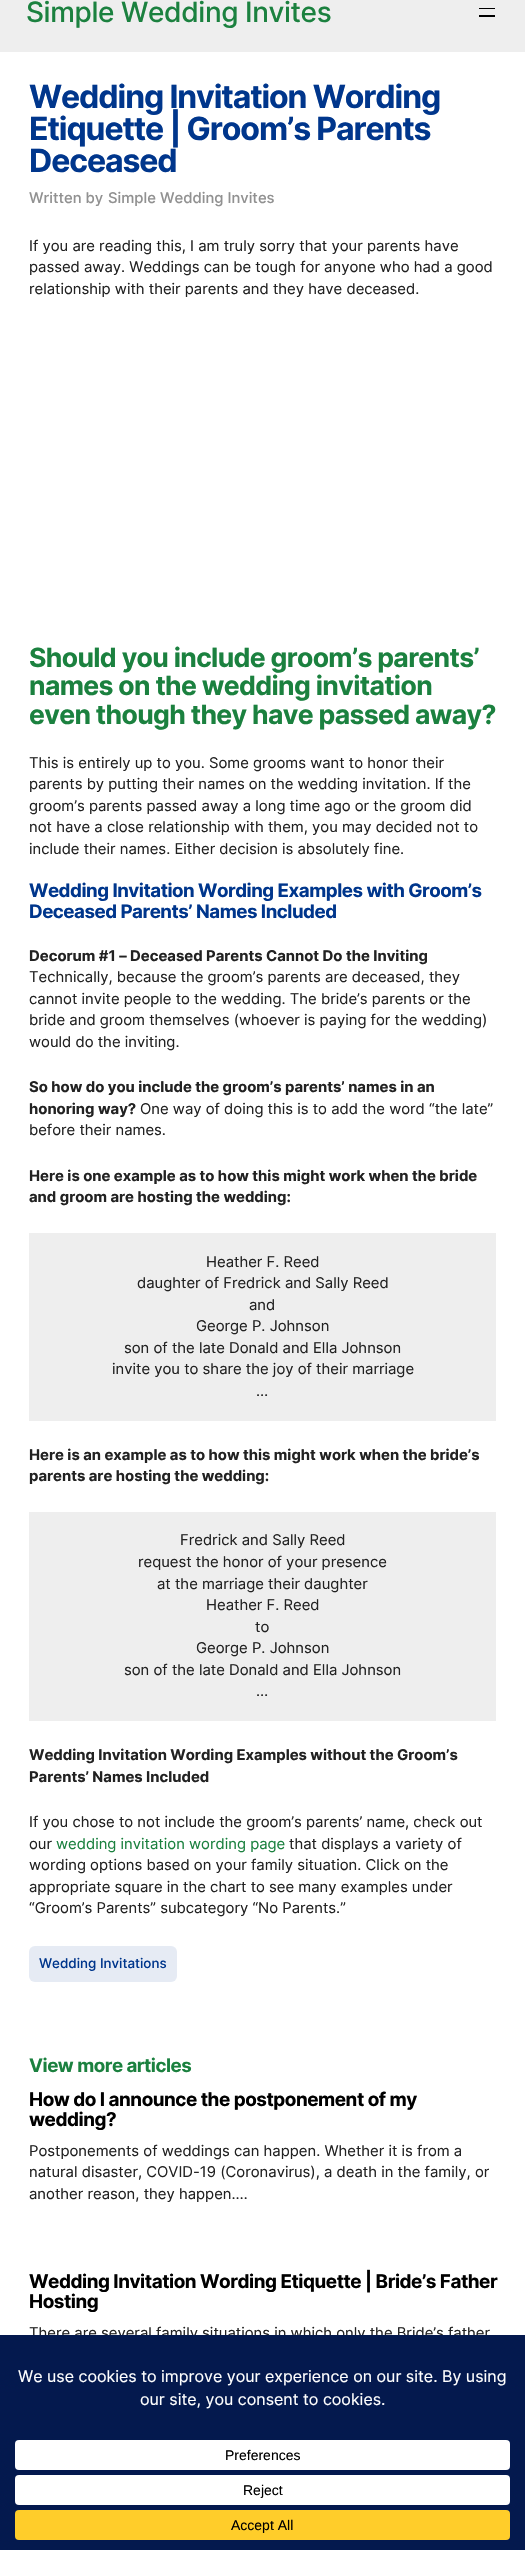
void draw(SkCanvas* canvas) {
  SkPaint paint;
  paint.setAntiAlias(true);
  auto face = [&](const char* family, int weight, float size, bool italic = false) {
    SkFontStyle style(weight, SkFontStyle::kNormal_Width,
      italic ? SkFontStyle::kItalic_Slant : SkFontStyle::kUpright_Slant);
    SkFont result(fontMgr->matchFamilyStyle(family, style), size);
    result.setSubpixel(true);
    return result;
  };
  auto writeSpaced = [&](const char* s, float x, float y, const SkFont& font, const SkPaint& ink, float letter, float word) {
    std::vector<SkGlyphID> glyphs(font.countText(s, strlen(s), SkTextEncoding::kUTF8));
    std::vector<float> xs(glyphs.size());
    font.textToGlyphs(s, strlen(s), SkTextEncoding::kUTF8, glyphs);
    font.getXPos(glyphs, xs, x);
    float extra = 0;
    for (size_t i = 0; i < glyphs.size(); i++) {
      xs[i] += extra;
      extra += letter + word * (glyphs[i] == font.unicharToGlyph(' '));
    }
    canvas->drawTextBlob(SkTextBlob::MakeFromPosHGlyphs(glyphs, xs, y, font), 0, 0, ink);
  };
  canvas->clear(0xffffffff);
  {
    const struct { float x, y, w, h; SkColor color; } items[] = {
      {0, 0, 525, 52, 0xffeeeeee},
      {479, 8, 16, 1, 0xff000000},
      {479, 15, 16, 2, 0xff000000},
      {29, 1233, 467, 188, 0xffeeeeee},
      {29, 1512, 467, 209, 0xffeeeeee},
    };
    for (auto [x, y, w, h, color] : items) {
      paint.setColor(color);
      canvas->drawRect(SkRect::MakeXYWH(x, y, w, h), paint);
    }
  }
  paint.setColor(0xffe6ebf4);
  canvas->drawRoundRect(SkRect::MakeXYWH(29, 1946, 148, 36), 6, 6, paint);
  auto f0 = face("Inter", 500, 28);
  paint.setColor(0xff1b813f);
  writeSpaced("Simple Wedding Invites", 26, 22, f0, paint, -0.4f, 0);
  auto f1 = face("Inter", 700, 32);
  paint.setColor(0xff00368c);
  {
    const struct { const char* s; float x, y; } items[] = {
      {"Wedding Invitation Wording", 29, 108},
      {"Etiquette | Groom’s Parents", 29, 140},
      {"Deceased", 29, 172},
    };
    for (auto [s, x, y] : items) {
      writeSpaced(s, x, y, f1, paint, -1.1f, 0);
    }
  }
  auto f2 = face("Inter", 500, 14.85f);
  paint.setColor(0xff919191);
  canvas->drawString("Written by", 29, 203, f2, paint);
  canvas->drawString("Simple Wedding Invites", 108, 203, f2, paint);
  auto f3 = face("Inter", 400, 14.85f);
  paint.setColor(0xff222222);
  {
    const struct { const char* s; float x, y; } items[] = {
      {"If you are reading this, I am truly sorry that your parents have", 29, 251},
      {"passed away. Weddings can be tough for anyone who had a good", 29, 272},
      {"relationship with their parents and they have deceased.", 29, 294},
    };
    for (auto [s, x, y] : items) {
      canvas->drawString(s, x, y, f3, paint);
    }
  }
  auto f4 = face("Inter", 700, 26.6f);
  paint.setColor(0xff1b813f);
  {
    const struct { const char* s; float x, y; } items[] = {
      {"Should you include groom’s parents’", 29, 667},
      {"names on the wedding invitation", 29, 695},
      {"even though they have passed away?", 29, 724},
    };
    for (auto [s, x, y] : items) {
      writeSpaced(s, x, y, f4, paint, -0.65f, 0);
    }
  }
  paint.setColor(0xff222222);
  {
    const struct { const char* s; float x, y; } items[] = {
      {"This is entirely up to you. Some grooms want to honor their", 29, 768},
      {"parents by putting their names on the wedding invitation. If the", 29, 789},
      {"groom’s parents passed away a long time ago or the groom did", 29, 811},
      {"not have a close relationship with them, you may decided not to", 29, 832},
      {"include their names. Either decision is absolutely fine.", 29, 854},
    };
    for (auto [s, x, y] : items) {
      canvas->drawString(s, x, y, f3, paint);
    }
  }
  auto f5 = face("Inter", 700, 18.7f);
  paint.setColor(0xff00368c);
  writeSpaced("Wedding Invitation Wording Examples with Groom’s", 29, 897, f5, paint, -0.47f, 0);
  writeSpaced("Deceased Parents’ Names Included", 29, 918, f5, paint, -0.47f, 0);
  auto f6 = face("Inter", 700, 14.85f);
  paint.setColor(0xff222222);
  canvas->drawString("Decorum #1 – Deceased Parents Cannot Do the Inviting", 29, 961, f6, paint);
  {
    const struct { const char* s; float x, y; } items[] = {
      {"Technically, because the groom’s parents are deceased, they", 29, 982},
      {"cannot invite people to the wedding. The bride’s parents or the", 29, 1004},
      {"bride and groom themselves (whoever is paying for the wedding)", 29, 1025},
      {"would do the inviting.", 29, 1047},
    };
    for (auto [s, x, y] : items) {
      canvas->drawString(s, x, y, f3, paint);
    }
  }
  canvas->drawString("So how do you include the groom’s parents’ names in an", 29, 1092, f6, paint);
  canvas->drawString("honoring way?", 29, 1114, f6, paint);
  canvas->drawString("One way of doing this is to add the word “the late”", 140, 1114, f3, paint);
  canvas->drawString("before their names.", 29, 1135, f3, paint);
  canvas->drawString("Here is one example as to how this might work when the bride", 29, 1181, f6, paint);
  canvas->drawString("and groom are hosting the wedding:", 29, 1202, f6, paint);
  {
    const struct { const char* s; float x, y; } items[] = {
      {"Heather F. Reed", 206, 1267},
      {"daughter of Fredrick and Sally Reed", 137, 1288},
      {"and", 249, 1310},
      {"George P. Johnson", 196, 1331},
      {"son of the late Donald and Ella Johnson", 124, 1353},
      {"invite you to share the joy of their marriage", 112, 1374},
      {"…", 256, 1396},
    };
    for (auto [s, x, y] : items) {
      canvas->drawString(s, x, y, f3, paint);
    }
  }
  canvas->drawString("Here is an example as to how this might work when the bride’s", 29, 1460, f6, paint);
  canvas->drawString("parents are hosting the wedding:", 29, 1481, f6, paint);
  {
    const struct { const char* s; float x, y; } items[] = {
      {"Fredrick and Sally Reed", 180, 1545},
      {"request the honor of your presence", 138, 1567},
      {"at the marriage their daughter", 157, 1589},
      {"Heather F. Reed", 206, 1610},
      {"to", 255, 1632},
      {"George P. Johnson", 196, 1653},
      {"son of the late Donald and Ella Johnson", 124, 1675},
      {"…", 256, 1696},
    };
    for (auto [s, x, y] : items) {
      canvas->drawString(s, x, y, f3, paint);
    }
  }
  canvas->drawString("Wedding Invitation Wording Examples without the Groom’s", 29, 1760, f6, paint);
  canvas->drawString("Parents’ Names Included", 29, 1782, f6, paint);
  canvas->drawString("If you chose to not include the groom’s parents’ name, check out", 29, 1827, f3, paint);
  canvas->drawString("our", 29, 1849, f3, paint);
  paint.setColor(0xff1b813f);
  canvas->drawString("wedding invitation wording page", 56, 1849, f3, paint);
  paint.setColor(0xff222222);
  {
    const struct { const char* s; float x, y; } items[] = {
      {"that displays a variety of", 289, 1849},
      {"wording options based on your family situation. Click on the", 29, 1870},
      {"appropriate square in the chart to see many examples under", 29, 1892},
      {"“Groom’s Parents” subcategory “No Parents.”", 29, 1913},
    };
    for (auto [s, x, y] : items) {
      canvas->drawString(s, x, y, f3, paint);
    }
  }
  auto f7 = face("Inter", 500, 13.4f);
  paint.setColor(0xff00368c);
  canvas->drawString("Wedding Invitations", 39, 1968, f7, paint);
  paint.setColor(0xff1b813f);
  writeSpaced("View more articles", 29, 2072, f5, paint, -0.47f, 0);
  auto f8 = face("Inter", 700, 18.9f);
  paint.setColor(0xff000000);
  writeSpaced("How do I announce the postponement of my", 29, 2106, f8, paint, -0.47f, 0);
  writeSpaced("wedding?", 29, 2126, f8, paint, -0.47f, 0);
  paint.setColor(0xff222222);
  {
    const struct { const char* s; float x, y; } items[] = {
      {"Postponements of weddings can happen. Whether it is from a", 29, 2156},
      {"natural disaster, COVID-19 (Coronavirus), a death in the family, or", 29, 2177},
      {"another reason, they happen.…", 29, 2199},
    };
    for (auto [s, x, y] : items) {
      canvas->drawString(s, x, y, f3, paint);
    }
  }
  paint.setColor(0xff000000);
  writeSpaced("Wedding Invitation Wording Etiquette | Bride’s Father", 29, 2288, f8, paint, -0.47f, 0);
  writeSpaced("Hosting", 29, 2308, f8, paint, -0.47f, 0);
  paint.setColor(0xff222222);
  canvas->drawString("There are several family situations in which only the Bride’s father", 29, 2338, f3, paint);
  paint.setColor(0xff04194e);
  canvas->drawRect(SkRect::MakeXYWH(0, 2335, 525, 215), paint);
  auto f9 = face("Inter", 400, 16);
  paint.setColor(0xffffffff);
  canvas->drawString("We use cookies to improve your experience on our site. By using", 18, 2382, f9, paint);
  canvas->drawString("our site, you consent to cookies.", 140, 2405, f9, paint);
  canvas->drawRoundRect(SkRect::MakeXYWH(15, 2440, 495, 30), 4, 4, paint);
  auto f10 = face("Liberation Sans", 400, 14);
  paint.setColor(0xff000000);
  canvas->drawString("Preferences", 225, 2460, f10, paint);
  paint.setColor(0xffffffff);
  canvas->drawRoundRect(SkRect::MakeXYWH(15, 2475, 495, 30), 4, 4, paint);
  paint.setColor(0xff000000);
  canvas->drawString("Reject", 243, 2495, f10, paint);
  paint.setColor(0xffffcd2a);
  canvas->drawRoundRect(SkRect::MakeXYWH(15, 2510, 495, 30), 4, 4, paint);
  paint.setColor(0xff000000);
  canvas->drawString("Accept All", 231, 2530, f10, paint);
}
